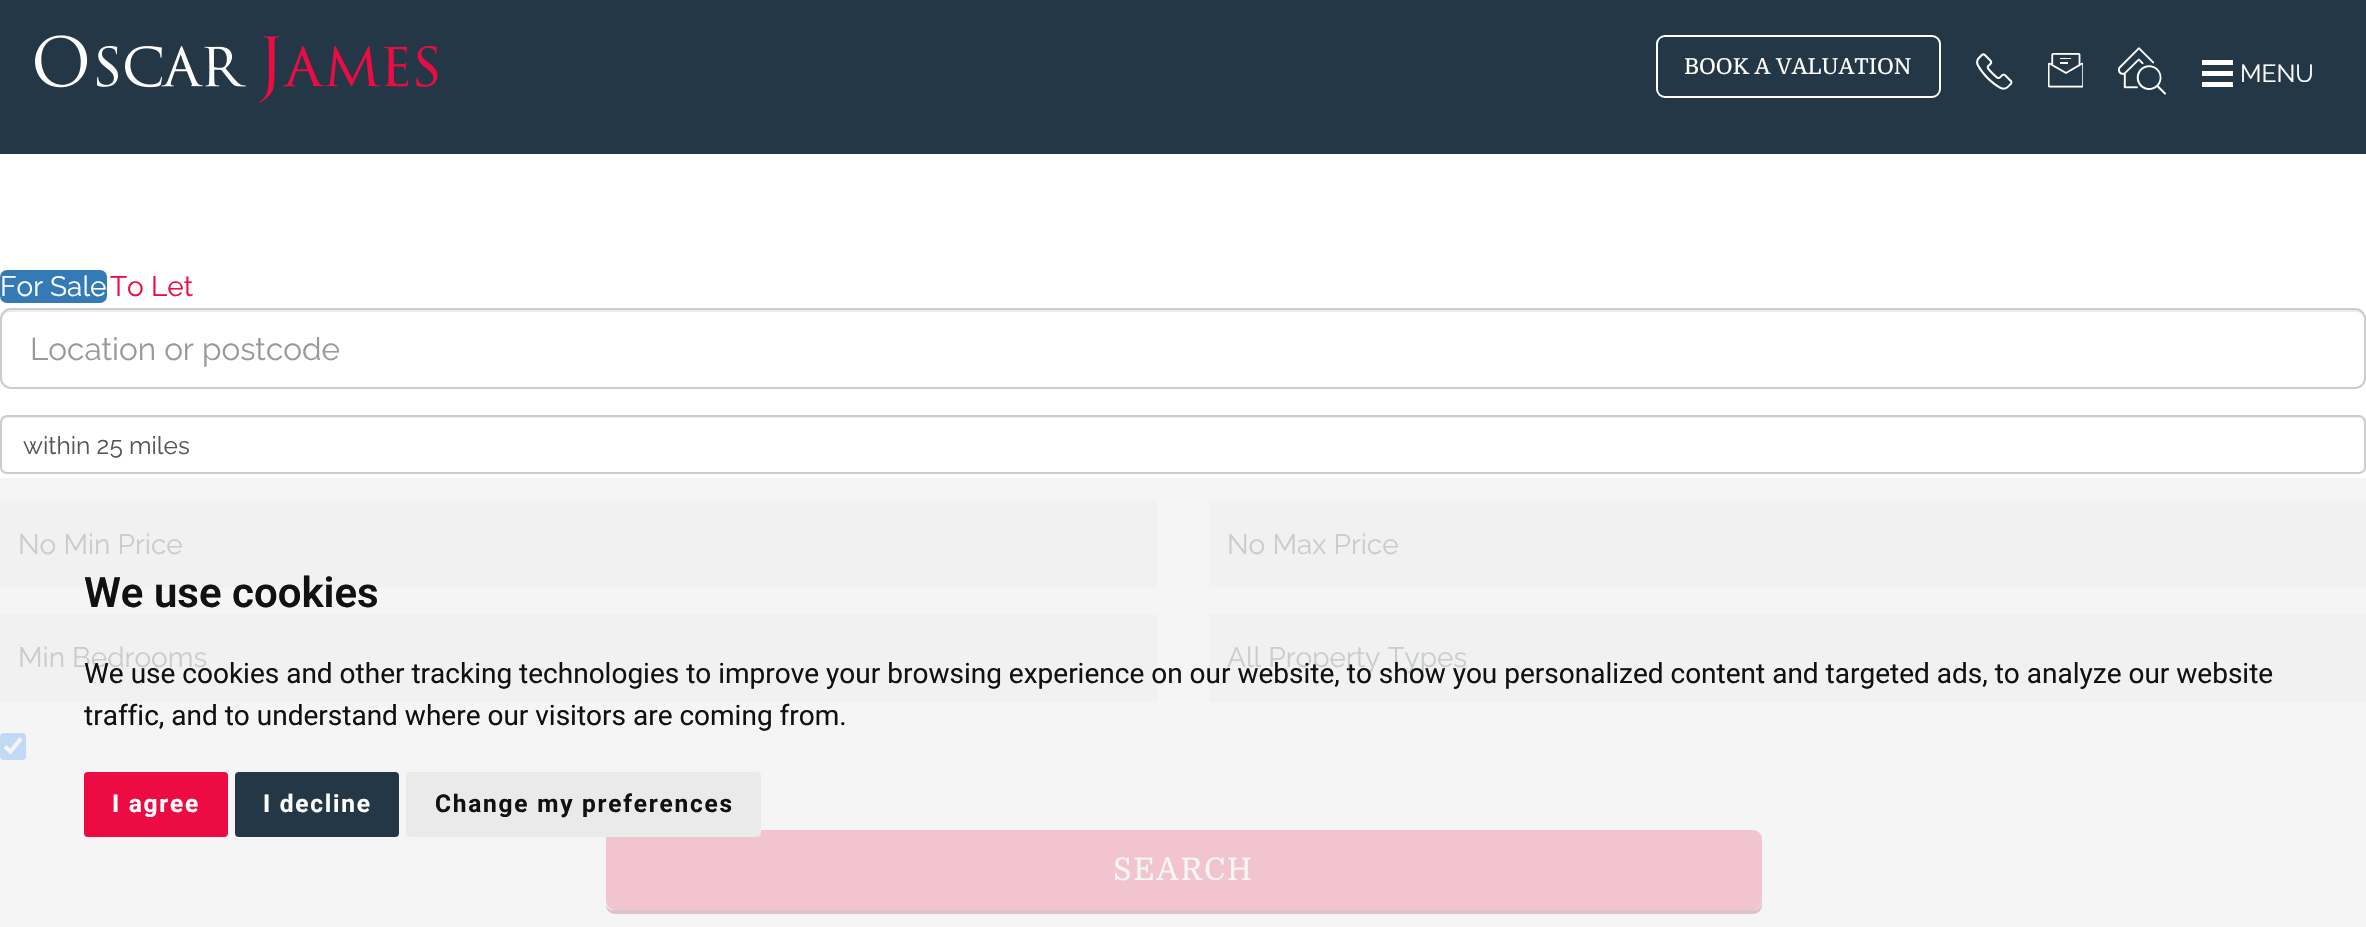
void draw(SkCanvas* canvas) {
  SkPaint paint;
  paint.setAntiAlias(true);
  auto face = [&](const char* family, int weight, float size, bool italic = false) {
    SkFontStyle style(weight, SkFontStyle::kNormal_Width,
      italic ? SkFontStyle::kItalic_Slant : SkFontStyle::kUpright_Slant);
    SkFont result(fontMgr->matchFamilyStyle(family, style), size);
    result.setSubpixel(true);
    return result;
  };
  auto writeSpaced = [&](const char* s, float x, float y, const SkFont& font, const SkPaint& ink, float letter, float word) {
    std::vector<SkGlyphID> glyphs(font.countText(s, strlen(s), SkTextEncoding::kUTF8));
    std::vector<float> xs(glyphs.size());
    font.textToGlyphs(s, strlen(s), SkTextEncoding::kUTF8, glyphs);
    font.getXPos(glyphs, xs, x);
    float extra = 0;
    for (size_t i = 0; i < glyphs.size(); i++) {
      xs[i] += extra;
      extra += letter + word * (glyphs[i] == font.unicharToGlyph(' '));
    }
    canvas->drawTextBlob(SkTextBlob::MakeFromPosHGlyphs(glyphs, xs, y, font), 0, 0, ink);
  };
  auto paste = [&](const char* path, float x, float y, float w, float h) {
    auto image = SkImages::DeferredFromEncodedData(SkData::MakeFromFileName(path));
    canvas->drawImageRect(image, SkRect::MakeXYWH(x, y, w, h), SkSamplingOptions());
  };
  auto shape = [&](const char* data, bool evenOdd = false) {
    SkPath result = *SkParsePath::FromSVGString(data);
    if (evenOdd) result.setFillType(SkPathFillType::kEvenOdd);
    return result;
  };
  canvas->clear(0xffffffff);
  paint.setColor(0xfff5f5f5);
  canvas->drawRect(SkRect::MakeXYWH(0, 478, 2366, 449), paint);
  paint.setColor(0xff233746);
  canvas->drawRect(SkRect::MakeXYWH(0, 0, 2366, 154), paint);
  paste("img/1.png", 35, 35, 403, 68);
  paint.setStroke(true);
  paint.setStrokeWidth(2);
  paint.setColor(0xffffffff);
  canvas->drawRoundRect(SkRect::MakeXYWH(1657, 36, 283, 61), 8, 8, paint);
  paste("img/2.png", 1976, 53, 37, 37);
  paste("img/3.png", 2048, 53, 35, 35);
  paste("img/4.png", 2118, 47, 49, 48);
  paint.setStroke(false);
  {
    const struct { float x, y, w, h; SkColor color; } items[] = {
      {2202, 60, 31, 5, 0xffffffff},
      {2202, 71, 31, 5, 0xffffffff},
      {2202, 82, 31, 5, 0xffffffff},
    };
    for (auto [x, y, w, h, color] : items) {
      paint.setColor(color);
      canvas->drawRect(SkRect::MakeXYWH(x, y, w, h), paint);
    }
  }
  paint.setColor(0xff337ab7);
  canvas->drawRoundRect(SkRect::MakeXYWH(0, 270, 107, 33), 7, 7, paint);
  paint.setColor(0xffececec);
  canvas->drawPath(shape("M10 312H2356C2360 312 2364 315 2364 320V319C2364 314 2360 310 2355 310H11C6 310 2 314 2 319V320C2 315 6 312 10 312Z"), paint);
  paint.setStroke(true);
  paint.setColor(0xffcccccc);
  canvas->drawRoundRect(SkRect::MakeXYWH(1, 309, 2364, 79), 10, 10, paint);
  paint.setStroke(false);
  paint.setColor(0xffececec);
  canvas->drawPath(shape("M7 418H2359C2362 418 2364 421 2364 424V422C2364 419 2362 417 2359 417H7C4 417 2 419 2 422V424C2 421 4 418 7 418Z"), paint);
  paint.setStroke(true);
  paint.setColor(0xffcccccc);
  canvas->drawRoundRect(SkRect::MakeXYWH(1, 416, 2364, 57), 6, 6, paint);
  paint.setStroke(false);
  {
    const struct { float x, y, w, h; SkColor color; } items[] = {
      {0, 501, 1157, 87, 0xfff1f1f1},
      {1209, 501, 1157, 87, 0xfff1f1f1},
      {0, 614, 1157, 88, 0xfff1f1f1},
      {1209, 614, 1157, 88, 0xfff1f1f1},
    };
    for (auto [x, y, w, h, color] : items) {
      paint.setColor(color);
      canvas->drawRect(SkRect::MakeXYWH(x, y, w, h), paint);
    }
  }
  paint.setColor(0xffc2d9f5);
  canvas->drawRoundRect(SkRect::MakeXYWH(0, 733, 26, 27), 4, 4, paint);
  paint.setStroke(true);
  paint.setStrokeWidth(4.2f);
  paint.setColor(0xfff5f5f5);
  canvas->drawPath(shape("M5 746.5L10.5 751.5L21 738.5"), paint);
  paint.setStroke(false);
  paint.setColor(0xffdcc2c9);
  canvas->drawPath(shape("M606 904V905C606 910 610 914 615 914H1753C1758 914 1762 910 1762 905V903C1761 907 1758 910 1754 910H614C610 910 607 908 606 904Z"), paint);
  paint.setColor(0xfff1c4cf);
  canvas->drawRoundRect(SkRect::MakeXYWH(606, 830, 1156, 80), 9, 9, paint);
  paint.setColor(0xffed0b43);
  canvas->drawRoundRect(SkRect::MakeXYWH(84, 772, 144, 65), 4, 4, paint);
  paint.setColor(0xff233746);
  canvas->drawRoundRect(SkRect::MakeXYWH(235, 772, 164, 65), 4, 4, paint);
  paint.setColor(0xffeaeaea);
  canvas->drawRoundRect(SkRect::MakeXYWH(406, 772, 355, 65), 4, 4, paint);
  auto f0 = face("Domine", 400, 22);
  paint.setColor(0xffffffff);
  canvas->drawString("BOOK A VALUATION", 1684, 74, f0, paint);
  auto f1 = face("Raleway", 400, 24.5f);
  canvas->drawString("MENU", 2240, 82, f1, paint);
  auto f2 = face("Raleway", 400, 28);
  canvas->drawString("For Sale", 0, 296, f2, paint);
  paint.setColor(0xffed0b43);
  canvas->drawString("To Let", 110, 296, f2, paint);
  auto f3 = face("Raleway", 400, 31.5f);
  paint.setColor(0xff999999);
  canvas->drawString("Location or postcode", 30, 360, f3, paint);
  paint.setColor(0xff555555);
  canvas->drawString("within 25 miles", 23, 454, f1, paint);
  paint.setColor(0xffc9cdd0);
  {
    const struct { const char* s; float x, y; } items[] = {
      {"No Min Price", 18, 554},
      {"No Max Price", 1227, 554},
      {"Min Bedrooms", 18, 667},
      {"All Property Types", 1227, 667},
    };
    for (auto [s, x, y] : items) {
      canvas->drawString(s, x, y, f2, paint);
    }
  }
  auto f4 = face("Domine", 400, 31);
  paint.setColor(0xfff5f5f5);
  writeSpaced("SEARCH", 1113, 880, f4, paint, 1.75f, 0);
  auto f5 = face("Roboto", 600, 42);
  paint.setColor(0xff111111);
  canvas->drawString("We use cookies", 84, 607, f5, paint);
  auto f6 = face("Roboto", 400, 28);
  canvas->drawString("We use cookies and other tracking technologies to improve your browsing experience on our website, to show you personalized content and targeted ads, to analyze our website", 84, 683, f6, paint);
  canvas->drawString("traffic, and to understand where our visitors are coming from.", 84, 725, f6, paint);
  auto f7 = face("Roboto", 700, 24.5f);
  paint.setColor(0xffffffff);
  writeSpaced("I agree", 112, 812, f7, paint, 1.75f, 0);
  writeSpaced("I decline", 263, 812, f7, paint, 1.75f, 0);
  paint.setColor(0xff111111);
  writeSpaced("Change my preferences", 435, 812, f7, paint, 1.75f, 0);
}
